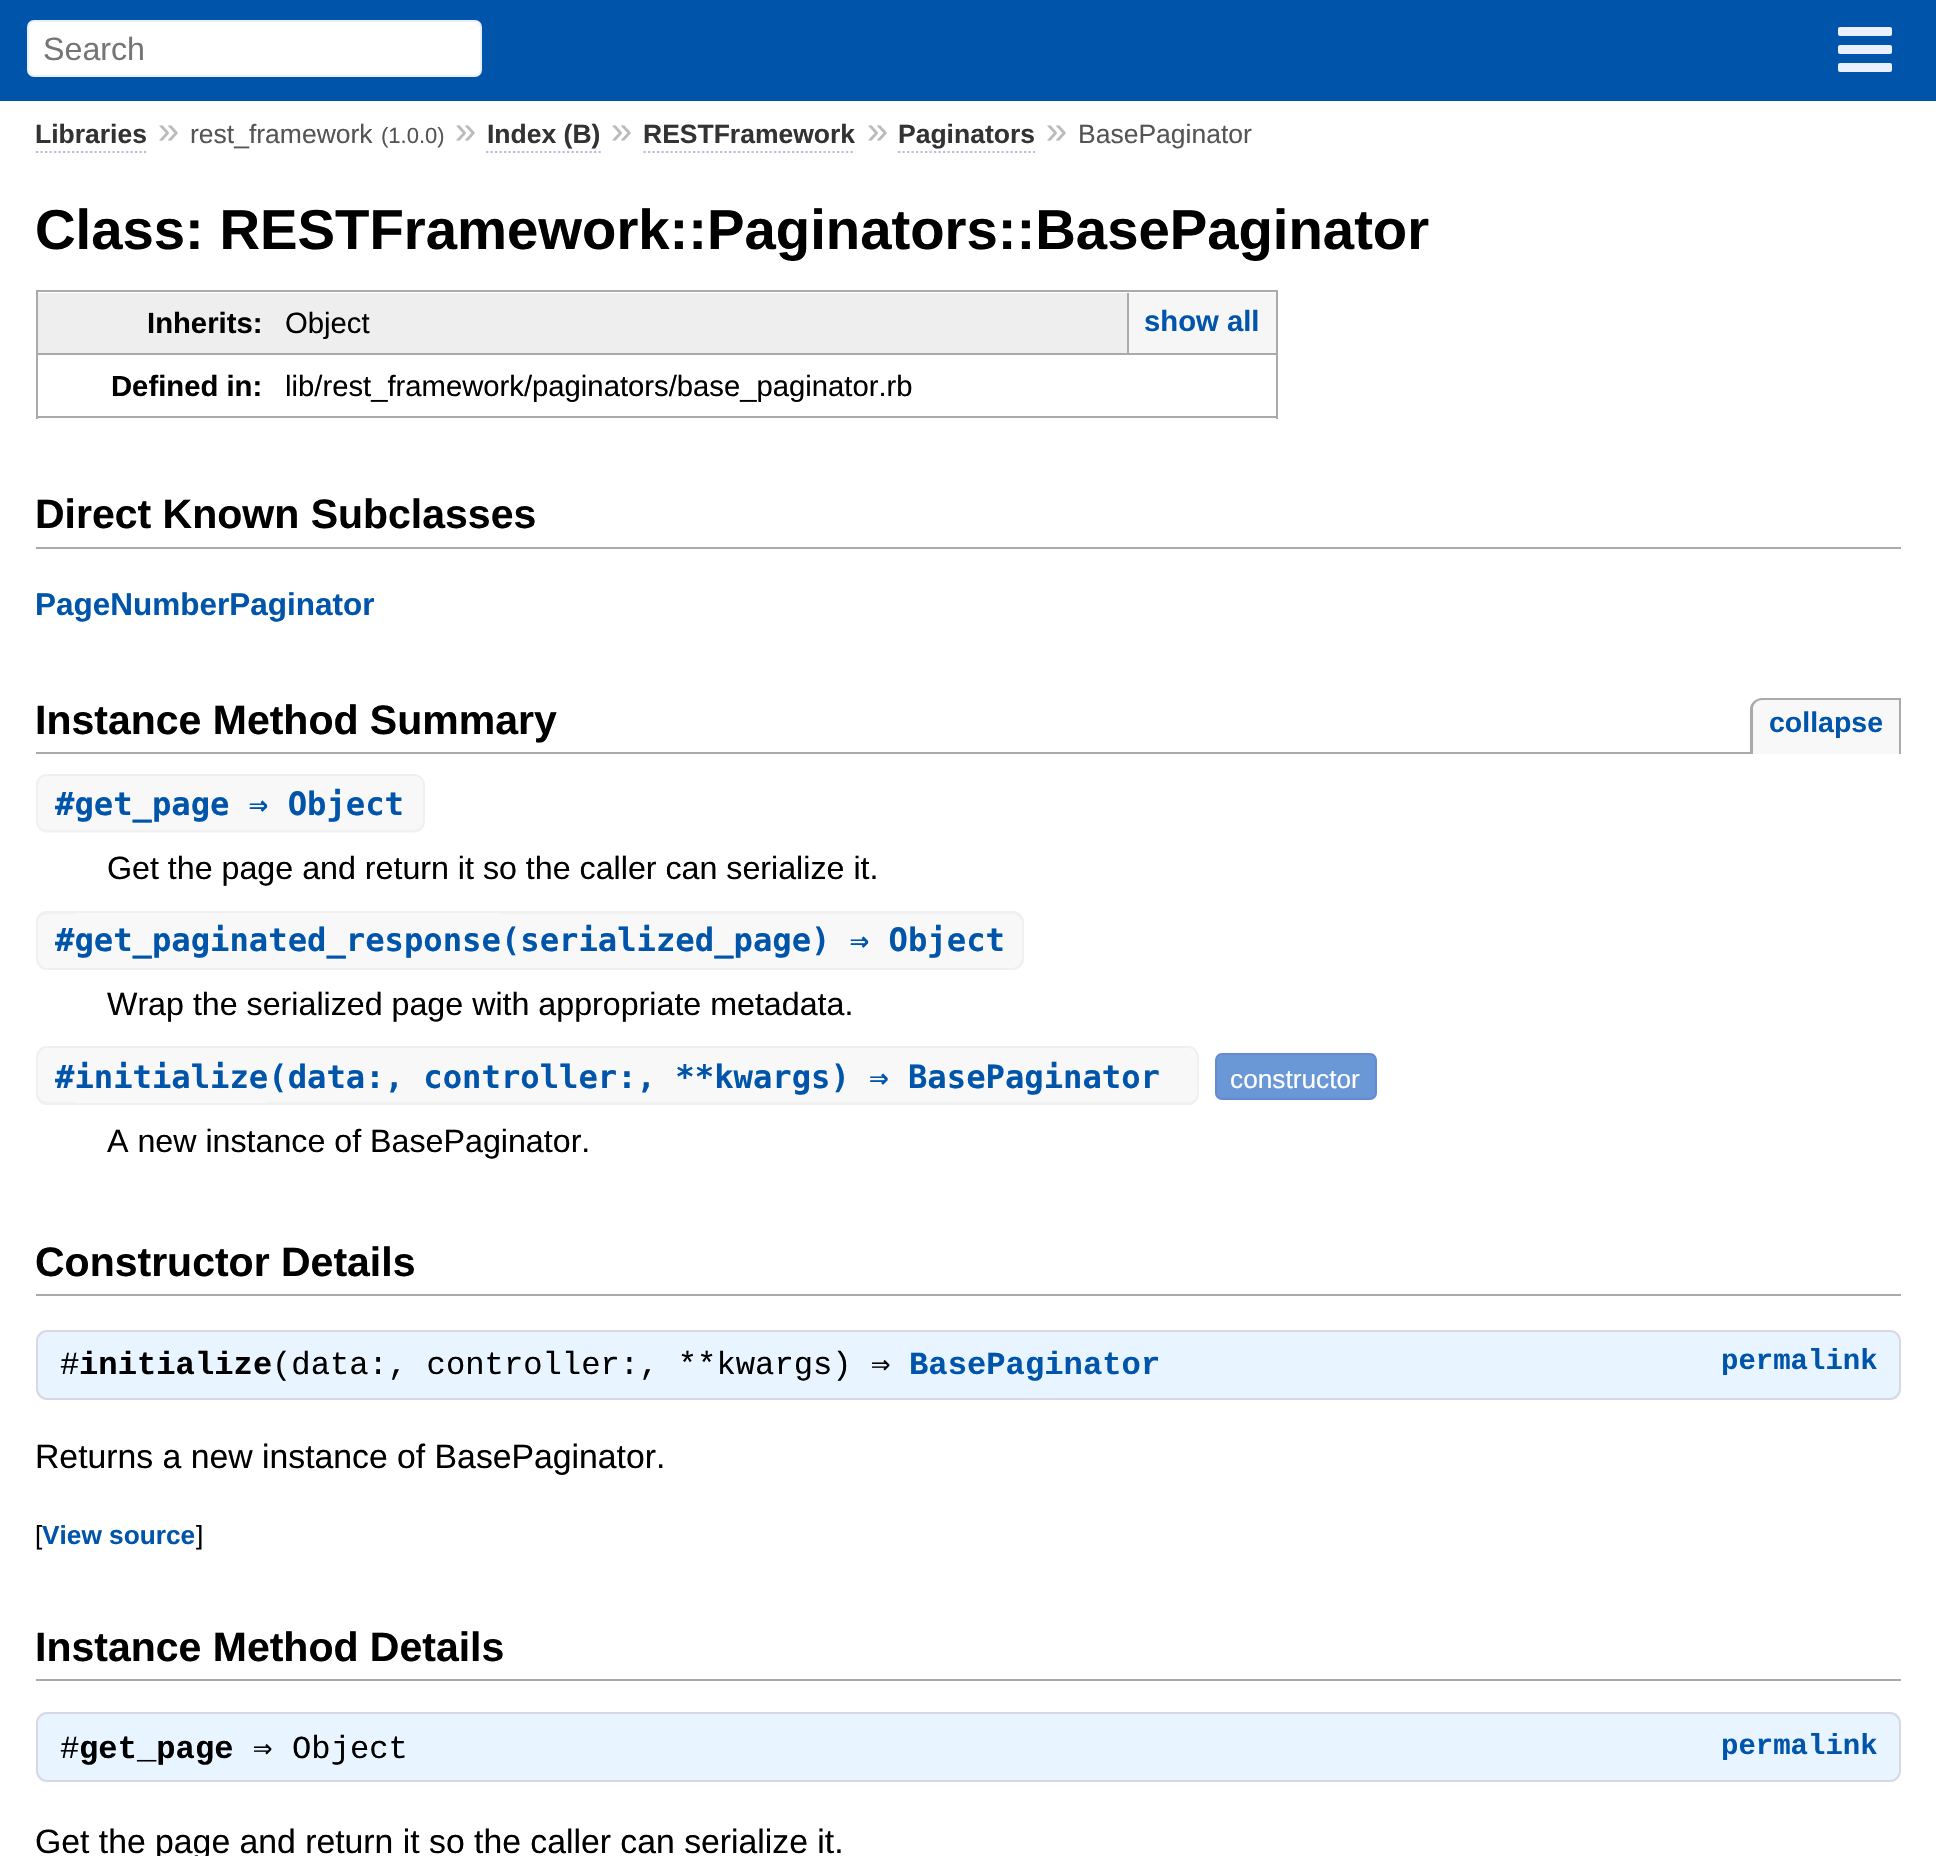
void draw(SkCanvas* canvas) {
  SkPaint paint;
  paint.setAntiAlias(true);
  auto face = [&](const char* family, int weight, float size, bool italic = false) {
    SkFontStyle style(weight, SkFontStyle::kNormal_Width,
      italic ? SkFontStyle::kItalic_Slant : SkFontStyle::kUpright_Slant);
    SkFont result(fontMgr->matchFamilyStyle(family, style), size);
    result.setSubpixel(true);
    return result;
  };
  auto shape = [&](const char* data, bool evenOdd = false) {
    SkPath result = *SkParsePath::FromSVGString(data);
    if (evenOdd) result.setFillType(SkPathFillType::kEvenOdd);
    return result;
  };
  canvas->clear(0xffffffff);
  paint.setColor(0xff0055aa);
  canvas->drawRect(SkRect::MakeXYWH(0, 0, 1936, 101), paint);
  paint.setColor(0xffffffff);
  canvas->drawRoundRect(SkRect::MakeXYWH(28, 21, 453, 55), 6, 6, paint);
  paint.setStroke(true);
  paint.setStrokeWidth(2);
  paint.setColor(0xffeaf0ff);
  canvas->drawRoundRect(SkRect::MakeXYWH(28, 21, 453, 55), 6, 6, paint);
  paint.setStroke(false);
  canvas->drawRoundRect(SkRect::MakeXYWH(1838, 27, 54, 9), 2, 2, paint);
  canvas->drawRoundRect(SkRect::MakeXYWH(1838, 45, 54, 9), 2, 2, paint);
  canvas->drawRoundRect(SkRect::MakeXYWH(1838, 63, 54, 9), 2, 2, paint);
  paint.setStroke(true);
  paint.setStrokeWidth(2.2f);
  paint.setColor(0xffbbbbdd);
  paint.setPathEffect(SkDashPathEffect::Make({{2.25f, 2.25f}}, 0));
  canvas->drawPath(shape("M36 152H148.5"), paint);
  paint.setPathEffect(nullptr);
  paint.setPathEffect(SkDashPathEffect::Make({{2.25f, 2.25f}}, 0));
  canvas->drawPath(shape("M486 152H601"), paint);
  paint.setPathEffect(nullptr);
  paint.setPathEffect(SkDashPathEffect::Make({{2.25f, 2.25f}}, 0));
  canvas->drawPath(shape("M643.5 152H855"), paint);
  paint.setPathEffect(nullptr);
  paint.setPathEffect(SkDashPathEffect::Make({{2.25f, 2.25f}}, 0));
  canvas->drawPath(shape("M898 152H1035"), paint);
  paint.setPathEffect(nullptr);
  paint.setStroke(false);
  {
    const struct { float x, y, w, h; SkColor color; } items[] = {
      {38, 293, 1089, 60, 0xffeeeeee},
      {36, 290, 1242, 2, 0xffaaaaaa},
      {36, 290, 2, 63, 0xffaaaaaa},
      {36, 353, 1242, 2, 0xffaaaaaa},
      {1276, 290, 2, 129, 0xffaaaaaa},
      {1129, 293, 147, 60, 0xfff6f6f6},
      {1127, 293, 2, 60, 0xffaaaaaa},
      {36, 416, 250, 2, 0xffaaaaaa},
      {36, 353, 2, 66, 0xffaaaaaa},
      {286, 416, 992, 2, 0xffaaaaaa},
      {36, 547, 1865, 2, 0xffaaaaaa},
      {36, 752, 1714, 2, 0xffaaaaaa},
    };
    for (auto [x, y, w, h, color] : items) {
      paint.setColor(color);
      canvas->drawRect(SkRect::MakeXYWH(x, y, w, h), paint);
    }
  }
  paint.setColor(0xfff8f8f8);
  canvas->drawPath(shape("M1762 698H1901V754H1751V709C1751 703 1756 698 1762 698Z"), paint);
  paint.setColor(0xffaaaaaa);
  canvas->drawPath(shape("M1762 698H1901V754H1750V709C1750 703 1756 698 1762 698ZM1762 700H1899V754H1753V709C1753 704 1757 700 1762 700Z", true), paint);
  paint.setColor(0xfff8f8f8);
  canvas->drawPath(shape("M47 774H74V833H47C41 833 36 828 36 822V785C36 779 41 774 47 774Z"), paint);
  paint.setColor(0xfff0f0f0);
  canvas->drawPath(shape("M47 774H74V832H47C41 832 36 827 36 821V785C36 779 41 774 47 774ZM47 776H74V830H47C42 830 38 826 38 821V785C38 780 42 776 47 776Z", true), paint);
  {
    const struct { float x, y, w, h; SkColor color; } items[] = {
      {74, 776, 156, 57, 0xfff8f8f8},
      {74, 774, 156, 2, 0xfff0f0f0},
      {74, 830, 156, 2, 0xfff0f0f0},
    };
    for (auto [x, y, w, h, color] : items) {
      paint.setColor(color);
      canvas->drawRect(SkRect::MakeXYWH(x, y, w, h), paint);
    }
  }
  paint.setColor(0xfff8f8f8);
  canvas->drawPath(shape("M230 774H414C420 774 425 779 425 785V822C425 828 420 833 414 833H230Z"), paint);
  paint.setColor(0xfff0f0f0);
  canvas->drawPath(shape("M230 774H414C420 774 425 779 425 785V821C425 827 420 832 414 832H230ZM230 776H414C419 776 423 780 423 785V821C423 826 419 830 414 830H230Z", true), paint);
  paint.setColor(0xfff8f8f8);
  canvas->drawPath(shape("M47 911H74V970H47C41 970 36 965 36 959V922C36 916 41 911 47 911Z"), paint);
  paint.setColor(0xfff0f0f0);
  canvas->drawPath(shape("M47 911H74V970H47C41 970 36 965 36 958V922C36 916 41 911 47 911ZM47 914H74V968H47C42 968 38 963 38 958V922C38 918 42 914 47 914Z", true), paint);
  {
    const struct { float x, y, w, h; SkColor color; } items[] = {
      {74, 913, 428, 55, 0xfff8f8f8},
      {74, 911, 428, 2, 0xfff0f0f0},
      {74, 968, 428, 2, 0xfff0f0f0},
    };
    for (auto [x, y, w, h, color] : items) {
      paint.setColor(color);
      canvas->drawRect(SkRect::MakeXYWH(x, y, w, h), paint);
    }
  }
  paint.setColor(0xfff8f8f8);
  canvas->drawPath(shape("M502 911H1013C1019 911 1024 916 1024 922V959C1024 965 1019 970 1013 970H502Z"), paint);
  paint.setColor(0xfff0f0f0);
  canvas->drawPath(shape("M502 911H1012C1019 911 1024 916 1024 922V958C1024 965 1019 970 1012 970H502ZM502 914H1012C1017 914 1022 918 1022 922V958C1022 963 1017 968 1012 968H502Z", true), paint);
  paint.setColor(0xfff8f8f8);
  canvas->drawPath(shape("M47 1046H74V1105H47C41 1105 36 1100 36 1094V1057C36 1051 41 1046 47 1046Z"), paint);
  paint.setColor(0xfff0f0f0);
  canvas->drawPath(shape("M47 1046H74V1105H47C41 1105 36 1100 36 1094V1058C36 1051 41 1046 47 1046ZM47 1048H74V1102H47C42 1102 38 1098 38 1094V1058C38 1053 42 1048 47 1048Z", true), paint);
  {
    const struct { float x, y, w, h; SkColor color; } items[] = {
      {74, 1048, 194, 55, 0xfff8f8f8},
      {74, 1046, 194, 2, 0xfff0f0f0},
      {74, 1103, 194, 2, 0xfff0f0f0},
    };
    for (auto [x, y, w, h, color] : items) {
      paint.setColor(color);
      canvas->drawRect(SkRect::MakeXYWH(x, y, w, h), paint);
    }
  }
  paint.setColor(0xfff8f8f8);
  canvas->drawPath(shape("M268 1046H1188C1194 1046 1199 1051 1199 1057V1094C1199 1100 1194 1105 1188 1105H268Z"), paint);
  paint.setColor(0xfff0f0f0);
  canvas->drawPath(shape("M268 1046H1188C1194 1046 1199 1051 1199 1058V1094C1199 1100 1194 1105 1188 1105H268ZM268 1048H1188C1193 1048 1197 1053 1197 1058V1094C1197 1098 1193 1102 1188 1102H268Z", true), paint);
  paint.setColor(0xff6a98d6);
  canvas->drawRoundRect(SkRect::MakeXYWH(1216, 1054, 160, 45), 6, 6, paint);
  paint.setStroke(true);
  paint.setStrokeWidth(2);
  paint.setColor(0xff6689d6);
  canvas->drawRoundRect(SkRect::MakeXYWH(1216, 1054, 160, 45), 6, 6, paint);
  paint.setStroke(false);
  paint.setColor(0xffaaaaaa);
  canvas->drawRect(SkRect::MakeXYWH(36, 1294, 1865, 2), paint);
  paint.setColor(0xffe8f4ff);
  canvas->drawRoundRect(SkRect::MakeXYWH(37, 1331, 1863, 68), 10, 10, paint);
  paint.setStroke(true);
  paint.setColor(0xffd8d8e5);
  canvas->drawRoundRect(SkRect::MakeXYWH(37, 1331, 1863, 68), 10, 10, paint);
  paint.setStroke(false);
  paint.setColor(0xffaaaaaa);
  canvas->drawRect(SkRect::MakeXYWH(36, 1679, 1865, 2), paint);
  paint.setColor(0xffe8f4ff);
  canvas->drawRoundRect(SkRect::MakeXYWH(37, 1713, 1863, 68), 10, 10, paint);
  paint.setStroke(true);
  paint.setColor(0xffd8d8e5);
  canvas->drawRoundRect(SkRect::MakeXYWH(37, 1713, 1863, 68), 10, 10, paint);
  auto f0 = face("Liberation Sans", 400, 32.2f);
  paint.setStroke(false);
  paint.setColor(0xff757575);
  canvas->drawString("Search", 43, 60, f0, paint);
  auto f1 = face("Liberation Sans", 700, 26.5f);
  paint.setColor(0xff333333);
  canvas->drawString("Libraries", 35, 143, f1, paint);
  auto f2 = face("Liberation Sans", 400, 38);
  paint.setColor(0xffbbbbbb);
  canvas->drawString("»", 158, 143, f2, paint);
  auto f3 = face("Liberation Sans", 400, 26.5f);
  paint.setColor(0xff555555);
  canvas->drawString("rest_framework", 190, 143, f3, paint);
  auto f4 = face("Liberation Sans", 400, 22);
  canvas->drawString("(1.0.0)", 381, 143, f4, paint);
  paint.setColor(0xffbbbbbb);
  canvas->drawString("»", 455, 143, f2, paint);
  paint.setColor(0xff333333);
  canvas->drawString("Index (B)", 487, 143, f1, paint);
  paint.setColor(0xffbbbbbb);
  canvas->drawString("»", 611, 143, f2, paint);
  paint.setColor(0xff333333);
  canvas->drawString("RESTFramework", 643, 143, f1, paint);
  paint.setColor(0xffbbbbbb);
  canvas->drawString("»", 867, 143, f2, paint);
  paint.setColor(0xff333333);
  canvas->drawString("Paginators", 898, 143, f1, paint);
  paint.setColor(0xffbbbbbb);
  canvas->drawString("»", 1046, 143, f2, paint);
  paint.setColor(0xff555555);
  canvas->drawString("BasePaginator", 1078, 143, f3, paint);
  auto f5 = face("Liberation Sans", 700, 56.25f);
  paint.setColor(0xff000000);
  canvas->drawString("Class: RESTFramework::Paginators::BasePaginator", 35, 249, f5, paint);
  auto f6 = face("Liberation Sans", 700, 29.25f);
  canvas->drawString("Inherits:", 147, 333, f6, paint);
  auto f7 = face("Liberation Sans", 400, 29.25f);
  canvas->drawString("Object", 285, 333, f7, paint);
  paint.setColor(0xff0055aa);
  canvas->drawString("show all", 1144, 331, f6, paint);
  paint.setColor(0xff000000);
  canvas->drawString("Defined in:", 111, 396, f6, paint);
  canvas->drawString("lib/rest_framework/paginators/base_paginator.rb", 285, 396, f7, paint);
  auto f8 = face("Liberation Sans", 700, 41);
  canvas->drawString("Direct Known Subclasses", 35, 528, f8, paint);
  auto f9 = face("Liberation Sans", 700, 31.5f);
  paint.setColor(0xff0055aa);
  canvas->drawString("PageNumberPaginator", 35, 615, f9, paint);
  paint.setColor(0xff000000);
  canvas->drawString("Instance Method Summary", 35, 734, f8, paint);
  auto f10 = face("Liberation Sans", 700, 28.5f);
  paint.setColor(0xff0055aa);
  canvas->drawString("collapse", 1769, 732, f10, paint);
  auto f11 = face("DejaVu Sans Mono", 700, 32.2f);
  canvas->drawString("#get_page ⇒ Object", 55, 815, f11, paint);
  paint.setColor(0xff000000);
  canvas->drawString("Get the page and return it so the caller can serialize it.", 107, 879, f0, paint);
  paint.setColor(0xff0055aa);
  canvas->drawString("#get_paginated_response(serialized_page) ⇒ Object", 55, 951, f11, paint);
  paint.setColor(0xff000000);
  canvas->drawString("Wrap the serialized page with appropriate metadata.", 107, 1015, f0, paint);
  paint.setColor(0xff0055aa);
  canvas->drawString("#initialize(data:, controller:, **kwargs) ⇒ BasePaginator", 55, 1088, f11, paint);
  auto f12 = face("Liberation Sans", 400, 26.25f);
  paint.setColor(0xffffffff);
  canvas->drawString("constructor", 1230, 1088, f12, paint);
  paint.setColor(0xff000000);
  canvas->drawString("A new instance of BasePaginator.", 107, 1152, f0, paint);
  canvas->drawString("Constructor Details", 35, 1276, f8, paint);
  auto f13 = face("Liberation Mono", 400, 32.2f);
  canvas->drawString("#", 60, 1374, f13, paint);
  auto f14 = face("Liberation Mono", 700, 32.2f);
  canvas->drawString("initialize", 79, 1374, f14, paint);
  canvas->drawString("(data:, controller:, **kwargs)", 272, 1374, f13, paint);
  auto f15 = face("DejaVu Sans Mono", 400, 32.2f);
  canvas->drawString("⇒", 871, 1374, f15, paint);
  paint.setColor(0xff0055aa);
  canvas->drawString("BasePaginator", 909, 1374, f14, paint);
  auto f16 = face("Liberation Mono", 700, 29);
  canvas->drawString("permalink", 1721, 1369, f16, paint);
  auto f17 = face("Liberation Sans", 400, 33.75f);
  paint.setColor(0xff000000);
  canvas->drawString("Returns a new instance of BasePaginator.", 35, 1468, f17, paint);
  canvas->drawString("[", 35, 1544, f12, paint);
  auto f18 = face("Liberation Sans", 700, 26.25f);
  paint.setColor(0xff0055aa);
  canvas->drawString("View source", 42, 1544, f18, paint);
  paint.setColor(0xff000000);
  canvas->drawString("]", 196, 1544, f12, paint);
  canvas->drawString("Instance Method Details", 35, 1661, f8, paint);
  canvas->drawString("#", 60, 1758, f13, paint);
  canvas->drawString("get_page", 79, 1758, f14, paint);
  canvas->drawString("⇒", 253, 1758, f15, paint);
  canvas->drawString("Object", 292, 1758, f13, paint);
  paint.setColor(0xff0055aa);
  canvas->drawString("permalink", 1721, 1754, f16, paint);
  paint.setColor(0xff000000);
  canvas->drawString("Get the page and return it so the caller can serialize it.", 35, 1853, f17, paint);
}
